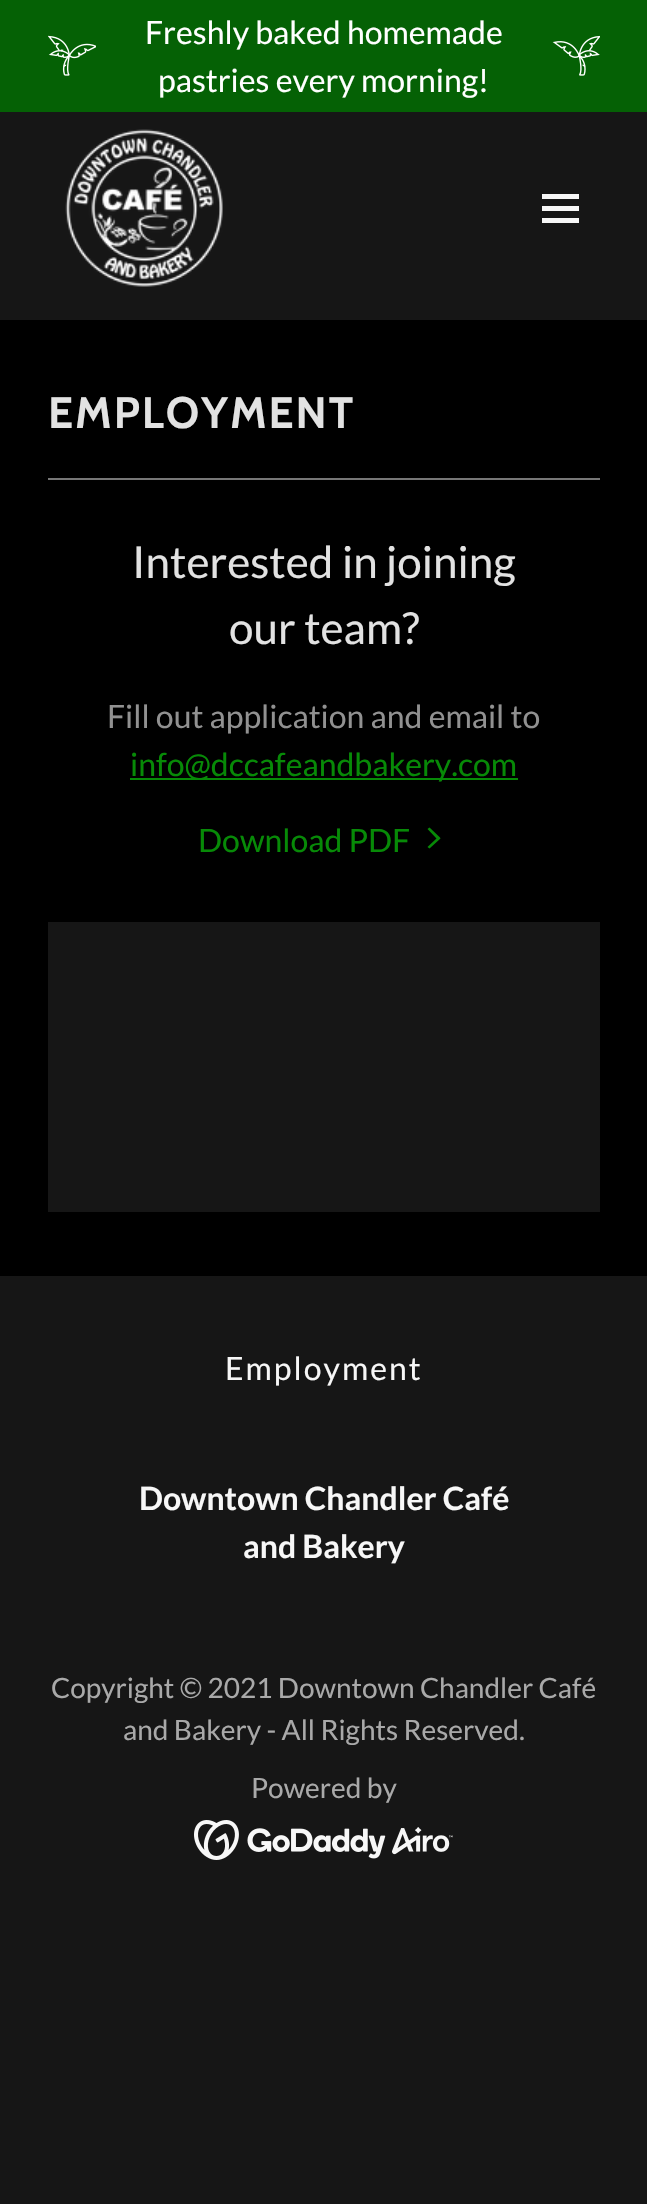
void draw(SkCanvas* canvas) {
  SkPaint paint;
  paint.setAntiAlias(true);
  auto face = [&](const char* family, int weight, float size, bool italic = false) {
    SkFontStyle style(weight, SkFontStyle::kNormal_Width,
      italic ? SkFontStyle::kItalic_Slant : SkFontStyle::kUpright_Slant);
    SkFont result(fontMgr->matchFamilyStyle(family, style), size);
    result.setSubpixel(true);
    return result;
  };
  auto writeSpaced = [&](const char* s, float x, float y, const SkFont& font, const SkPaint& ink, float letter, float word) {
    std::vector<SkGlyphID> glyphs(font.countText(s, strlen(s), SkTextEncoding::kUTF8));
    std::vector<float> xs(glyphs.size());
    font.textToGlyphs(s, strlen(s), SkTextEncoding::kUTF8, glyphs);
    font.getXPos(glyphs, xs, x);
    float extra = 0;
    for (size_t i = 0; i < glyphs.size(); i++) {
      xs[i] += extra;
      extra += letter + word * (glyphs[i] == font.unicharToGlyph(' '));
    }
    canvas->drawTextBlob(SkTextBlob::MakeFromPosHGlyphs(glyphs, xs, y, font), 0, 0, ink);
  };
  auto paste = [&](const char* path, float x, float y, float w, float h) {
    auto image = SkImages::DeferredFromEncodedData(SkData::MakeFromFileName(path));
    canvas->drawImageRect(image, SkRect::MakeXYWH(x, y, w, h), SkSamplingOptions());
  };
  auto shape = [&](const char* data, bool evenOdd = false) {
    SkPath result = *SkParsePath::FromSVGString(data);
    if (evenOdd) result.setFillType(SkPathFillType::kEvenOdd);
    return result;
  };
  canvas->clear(0xff161616);
  paint.setColor(0xff056105);
  canvas->drawRect(SkRect::MakeXYWH(0, 0, 647, 112), paint);
  paste("img/1.png", 48, 35, 48, 41);
  paste("img/2.png", 552, 35, 48, 41);
  paste("img/3.png", 65, 129, 158, 158);
  {
    const struct { float x, y, w, h; SkColor color; } items[] = {
      {542, 194, 37, 5, 0xfff7f7f7},
      {542, 206, 37, 5, 0xfff7f7f7},
      {542, 218, 37, 5, 0xfff7f7f7},
      {0, 320, 647, 956, 0xff000000},
      {48, 478, 552, 2, 0xff777777},
      {130, 778, 388, 2, 0xff078a07},
    };
    for (auto [x, y, w, h, color] : items) {
      paint.setColor(color);
      canvas->drawRect(SkRect::MakeXYWH(x, y, w, h), paint);
    }
  }
  canvas->drawPath(shape("M429.5 827.5L427.5 829L436.5 838.5L427.5 847L429.5 848.5L440.5 838.5L440 837.5Z", true), paint);
  paint.setColor(0xff161616);
  canvas->drawRect(SkRect::MakeXYWH(48, 922, 552, 290), paint);
  paste("img/4.png", 194, 1820, 259, 40);
  auto f0 = face("Lato", 400, 32);
  paint.setColor(0xffffffff);
  canvas->drawString("Freshly baked homemade", 145, 44, f0, paint);
  canvas->drawString("pastries every morning!", 158, 92, f0, paint);
  auto f1 = face("Cabin", 700, 44);
  paint.setColor(0xffe2e2e2);
  writeSpaced("EMPLOYMENT", 48, 428, f1, paint, 2, 0);
  auto f2 = face("Lato", 400, 44);
  canvas->drawString("Interested in joining", 132, 578, f2, paint);
  canvas->drawString("our team?", 229, 644, f2, paint);
  paint.setColor(0xff919191);
  canvas->drawString("Fill out application and email to", 107, 728, f0, paint);
  paint.setColor(0xff078a07);
  canvas->drawString("info@dccafeandbakery.com", 130, 776, f0, paint);
  canvas->drawString("Download PDF", 198, 852, f0, paint);
  paint.setColor(0xfff7f7f7);
  writeSpaced("Employment", 225, 1380, f0, paint, 2, 0);
  auto f3 = face("Lato", 700, 32);
  canvas->drawString("Downtown Chandler Café", 139, 1510, f3, paint);
  canvas->drawString("and Bakery", 243, 1558, f3, paint);
  auto f4 = face("Lato", 400, 28);
  paint.setColor(0xffa9a9a9);
  {
    const struct { const char* s; float x, y; } items[] = {
      {"Copyright © 2021 Downtown Chandler Café", 51, 1698},
      {"and Bakery - All Rights Reserved.", 123, 1740},
      {"Powered by", 251, 1798},
    };
    for (auto [s, x, y] : items) {
      canvas->drawString(s, x, y, f4, paint);
    }
  }
}
